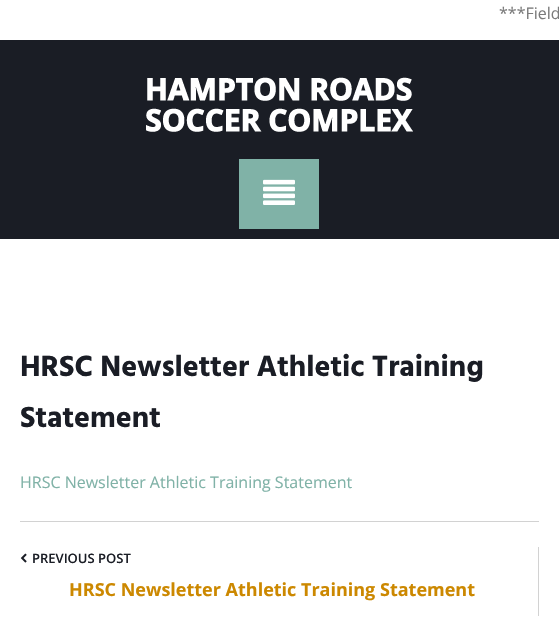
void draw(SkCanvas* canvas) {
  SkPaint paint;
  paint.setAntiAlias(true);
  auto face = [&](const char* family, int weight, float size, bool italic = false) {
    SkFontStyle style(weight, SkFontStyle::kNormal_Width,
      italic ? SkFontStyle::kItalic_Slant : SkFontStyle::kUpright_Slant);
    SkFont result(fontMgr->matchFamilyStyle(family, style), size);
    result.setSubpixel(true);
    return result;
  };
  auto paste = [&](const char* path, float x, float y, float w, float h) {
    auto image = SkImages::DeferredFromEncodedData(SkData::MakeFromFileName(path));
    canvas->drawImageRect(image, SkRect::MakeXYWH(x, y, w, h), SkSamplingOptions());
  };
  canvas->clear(0xffffffff);
  paint.setColor(0xff1a1d25);
  canvas->drawRect(SkRect::MakeXYWH(0, 40, 559, 199), paint);
  paste("img/1.png", 146, 77, 267, 55);
  paint.setColor(0xff80b2a7);
  canvas->drawRect(SkRect::MakeXYWH(239, 159, 80, 70), paint);
  paste("img/2.png", 263, 179, 32, 26);
  paint.setColor(0xffd2d2d2);
  canvas->drawRect(SkRect::MakeXYWH(20, 521, 519, 1), paint);
  canvas->drawRect(SkRect::MakeXYWH(538, 547, 1, 69), paint);
  paste("img/3.png", 20, 553, 7, 10);
  auto f0 = face("Open Sans", 400, 16);
  paint.setColor(0xff7b7b7b);
  canvas->drawString("***Field", 499, 19, f0, paint);
  auto f1 = face("Hind", 700, 30);
  paint.setColor(0xff1a1d25);
  canvas->drawString("HRSC Newsletter Athletic Training", 20, 376, f1, paint);
  canvas->drawString("Statement", 20, 427, f1, paint);
  paint.setColor(0xff80b2a7);
  canvas->drawString("HRSC Newsletter Athletic Training Statement", 20, 488, f0, paint);
  auto f2 = face("Open Sans", 600, 13);
  paint.setColor(0xff1a1d25);
  canvas->drawString("PREVIOUS POST", 32, 563, f2, paint);
  auto f3 = face("Open Sans", 700, 18);
  paint.setColor(0xffcc8800);
  canvas->drawString("HRSC Newsletter Athletic Training Statement", 69, 596, f3, paint);
}
